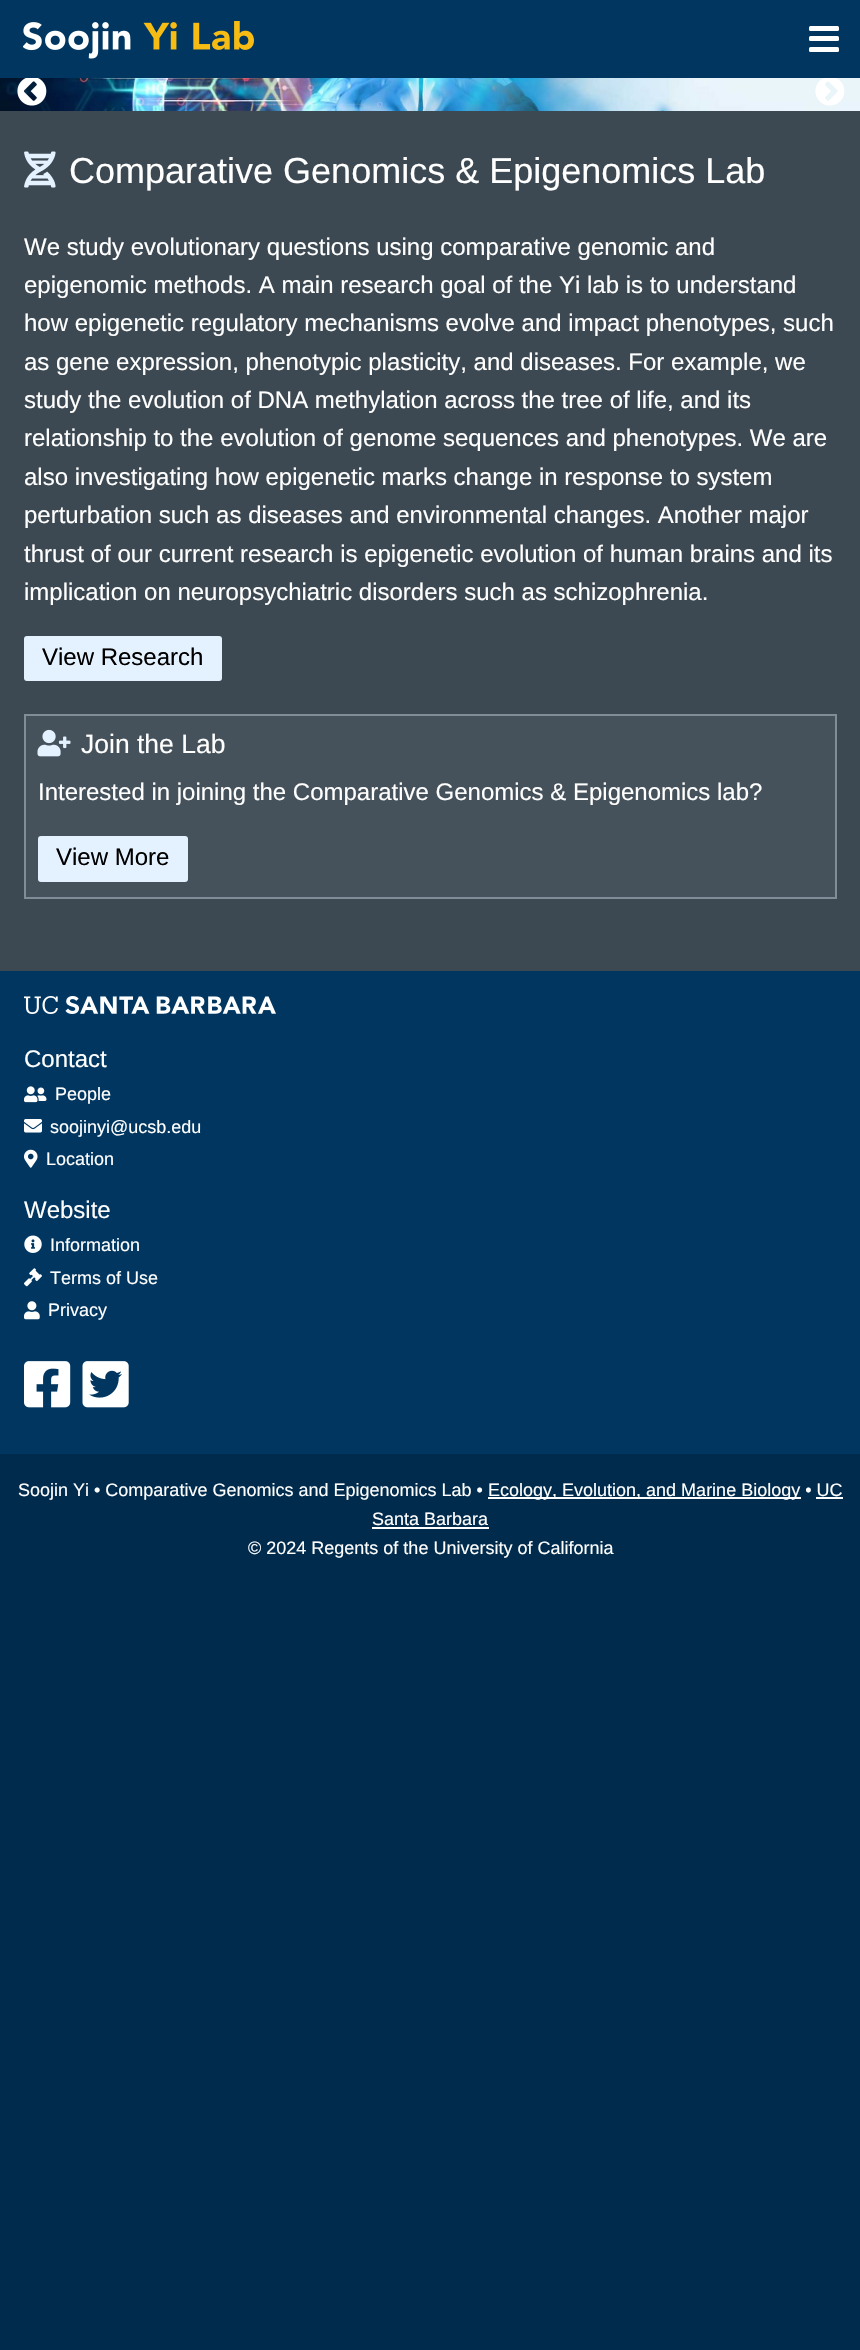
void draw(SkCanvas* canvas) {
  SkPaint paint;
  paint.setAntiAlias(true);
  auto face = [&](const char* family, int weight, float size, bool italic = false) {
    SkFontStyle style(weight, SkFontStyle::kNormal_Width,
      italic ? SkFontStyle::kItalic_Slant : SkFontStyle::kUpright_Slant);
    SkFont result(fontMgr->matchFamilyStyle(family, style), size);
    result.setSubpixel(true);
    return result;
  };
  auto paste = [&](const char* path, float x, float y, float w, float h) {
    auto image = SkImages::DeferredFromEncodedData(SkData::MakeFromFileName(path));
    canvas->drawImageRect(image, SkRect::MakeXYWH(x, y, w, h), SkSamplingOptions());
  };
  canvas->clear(0xff002b4c);
  paint.setColor(0xff003660);
  canvas->drawRect(SkRect::MakeXYWH(0, 0, 860, 78), paint);
  paste("img/1.png", 23, 21, 231, 38);
  paint.setColor(0xffffffff);
  canvas->drawRoundRect(SkRect::MakeXYWH(809, 26, 30, 5), 1.5f, 1.5f, paint);
  canvas->drawRoundRect(SkRect::MakeXYWH(809, 36, 30, 5), 1.5f, 1.5f, paint);
  canvas->drawRoundRect(SkRect::MakeXYWH(809, 47, 30, 5), 1.5f, 1.5f, paint);
  paste("img/2.png", 0, 78, 860, 33);
  paste("img/3.png", 17, 78, 30, 28);
  paste("img/4.png", 815, 78, 30, 28);
  paint.setColor(0xff3d4952);
  canvas->drawRect(SkRect::MakeXYWH(0, 111, 860, 860), paint);
  paste("img/5.png", 24, 151, 32, 37);
  paint.setColor(0xffe4f1fe);
  canvas->drawRoundRect(SkRect::MakeXYWH(24, 636, 198, 45), 3, 3, paint);
  paint.setColor(0xff46525b);
  canvas->drawRect(SkRect::MakeXYWH(25, 715, 811, 183), paint);
  paint.setStroke(true);
  paint.setStrokeWidth(2);
  paint.setColor(0xff808c97);
  canvas->drawRect(SkRect::MakeXYWH(25, 715, 811, 183), paint);
  paste("img/6.png", 37, 729, 34, 28);
  paint.setStroke(false);
  paint.setColor(0xffe4f1fe);
  canvas->drawRoundRect(SkRect::MakeXYWH(38, 836, 150, 46), 3, 3, paint);
  paint.setColor(0xff003660);
  canvas->drawRect(SkRect::MakeXYWH(0, 971, 860, 483), paint);
  paste("img/7.png", 24, 996, 252, 18);
  paste("img/8.png", 24, 1086, 23, 17);
  paste("img/9.png", 24, 1119, 18, 14);
  paste("img/10.png", 24, 1149, 14, 19);
  paste("img/11.png", 24, 1235, 18, 18);
  paste("img/12.png", 24, 1268, 18, 19);
  paste("img/13.png", 24, 1301, 16, 19);
  paste("img/14.png", 24, 1361, 47, 47);
  paste("img/15.png", 82, 1361, 47, 47);
  {
    const struct { float x, y, w, h; SkColor color; } items[] = {
      {488, 1497, 313, 2, 0xffffffff},
      {816, 1497, 27, 2, 0xffffffff},
      {372, 1527, 117, 2, 0xffffffff},
    };
    for (auto [x, y, w, h, color] : items) {
      paint.setColor(color);
      canvas->drawRect(SkRect::MakeXYWH(x, y, w, h), paint);
    }
  }
  auto f0 = face("Liberation Sans", 400, 36);
  canvas->drawString("Comparative Genomics & Epigenomics Lab", 69, 183, f0, paint);
  auto f1 = face("Liberation Sans", 400, 24);
  {
    const struct { const char* s; float x, y; } items[] = {
      {"We study evolutionary questions using comparative genomic and", 24, 255},
      {"epigenomic methods. A main research goal of the Yi lab is to understand", 24, 293},
      {"how epigenetic regulatory mechanisms evolve and impact phenotypes, such", 24, 331},
      {"as gene expression, phenotypic plasticity, and diseases. For example, we", 24, 370},
      {"study the evolution of DNA methylation across the tree of life, and its", 24, 408},
      {"relationship to the evolution of genome sequences and phenotypes. We are", 24, 446},
      {"also investigating how epigenetic marks change in response to system", 24, 485},
      {"perturbation such as diseases and environmental changes. Another major", 24, 523},
      {"thrust of our current research is epigenetic evolution of human brains and its", 24, 562},
      {"implication on neuropsychiatric disorders such as schizophrenia.", 24, 600},
    };
    for (auto [s, x, y] : items) {
      canvas->drawString(s, x, y, f1, paint);
    }
  }
  paint.setColor(0xff000000);
  canvas->drawString("View Research", 42, 665, f1, paint);
  auto f2 = face("Liberation Sans", 400, 26.5f);
  paint.setColor(0xffffffff);
  canvas->drawString("Join the Lab", 81, 753, f2, paint);
  canvas->drawString("Interested in joining the Comparative Genomics & Epigenomics lab?", 38, 800, f1, paint);
  paint.setColor(0xff000000);
  canvas->drawString("View More", 56, 865, f1, paint);
  paint.setColor(0xffffffff);
  canvas->drawString("Contact", 24, 1067, f1, paint);
  auto f3 = face("Liberation Sans", 400, 18);
  {
    const struct { const char* s; float x, y; } items[] = {
      {"People", 55, 1100},
      {"soojinyi@ucsb.edu", 50, 1133},
      {"Location", 46, 1165},
    };
    for (auto [s, x, y] : items) {
      canvas->drawString(s, x, y, f3, paint);
    }
  }
  canvas->drawString("Website", 24, 1218, f1, paint);
  {
    const struct { const char* s; float x, y; } items[] = {
      {"Information", 50, 1251},
      {"Terms of Use", 50, 1284},
      {"Privacy", 48, 1316},
      {"Soojin Yi • Comparative Genomics and Epigenomics Lab •", 18, 1496},
      {"Ecology, Evolution, and Marine Biology • UC", 488, 1496},
      {"Santa Barbara", 372, 1525},
      {"© 2024 Regents of the University of California", 248, 1554},
    };
    for (auto [s, x, y] : items) {
      canvas->drawString(s, x, y, f3, paint);
    }
  }
}
